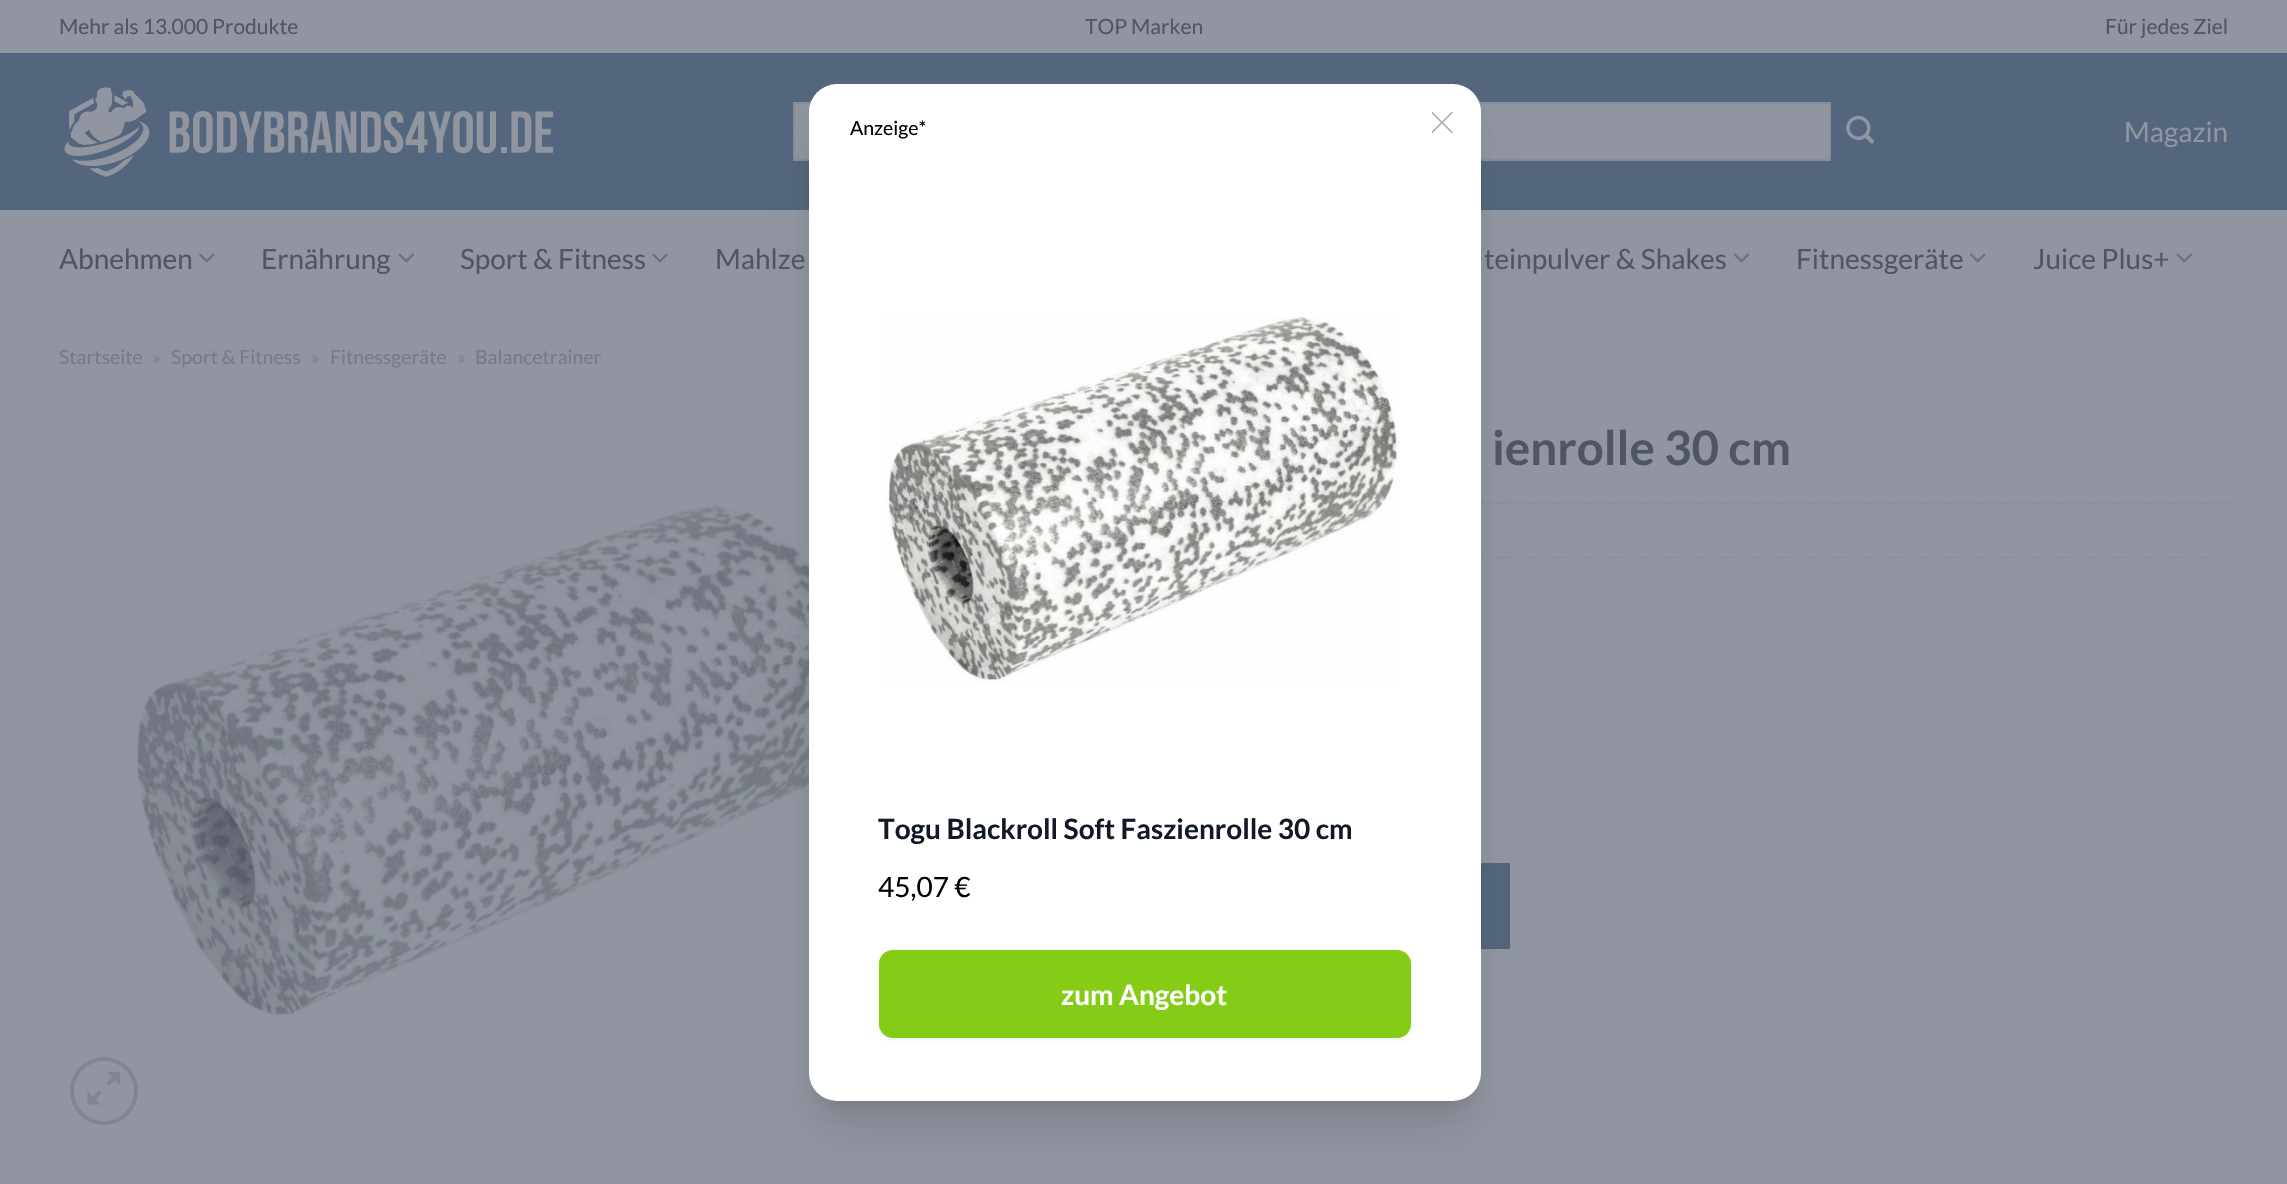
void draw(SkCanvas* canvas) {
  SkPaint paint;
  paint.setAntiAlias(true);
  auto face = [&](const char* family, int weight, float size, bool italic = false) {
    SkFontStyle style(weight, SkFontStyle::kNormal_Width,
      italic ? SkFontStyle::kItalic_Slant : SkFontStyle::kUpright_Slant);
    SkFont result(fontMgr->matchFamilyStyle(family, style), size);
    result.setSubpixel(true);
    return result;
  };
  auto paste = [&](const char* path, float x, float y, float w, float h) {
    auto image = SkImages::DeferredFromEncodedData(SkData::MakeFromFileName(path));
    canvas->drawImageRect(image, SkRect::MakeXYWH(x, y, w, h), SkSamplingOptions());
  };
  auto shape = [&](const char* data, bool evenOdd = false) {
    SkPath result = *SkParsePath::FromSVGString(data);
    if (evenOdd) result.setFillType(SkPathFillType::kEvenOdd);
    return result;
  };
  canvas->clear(0xff9095a0);
  paint.setColor(0xff54667d);
  canvas->drawRect(SkRect::MakeXYWH(0, 53, 2287, 157), paint);
  paste("img/1.png", 64, 87, 490, 90);
  paint.setColor(0xff9095a0);
  canvas->drawRect(SkRect::MakeXYWH(794, 103, 1036, 57), paint);
  paint.setStroke(true);
  paint.setStrokeWidth(2);
  paint.setColor(0xff888d97);
  canvas->drawRect(SkRect::MakeXYWH(794, 103, 1036, 57), paint);
  paste("img/2.png", 1846, 115, 28, 29);
  paste("img/3.png", 199, 253, 16, 10);
  paste("img/4.png", 398, 253, 16, 10);
  paste("img/5.png", 652, 253, 16, 10);
  paste("img/6.png", 1733, 253, 17, 10);
  paste("img/3.png", 1970, 253, 16, 10);
  paste("img/4.png", 2176, 253, 16, 10);
  paint.setStrokeWidth(1.8f);
  paint.setPathEffect(SkDashPathEffect::Make({{1.75f, 1.75f}}, 0));
  canvas->drawPath(shape("M985 503H2229.5"), paint);
  paint.setPathEffect(nullptr);
  paint.setPathEffect(SkDashPathEffect::Make({{1.75f, 1.75f}}, 0));
  canvas->drawPath(shape("M985 557.5H2229.5"), paint);
  paint.setPathEffect(nullptr);
  paint.setStroke(false);
  paint.setColor(0xff54667d);
  canvas->drawRect(SkRect::MakeXYWH(1481, 865, 27, 82), paint);
  paint.setStroke(true);
  paint.setStrokeWidth(2);
  paint.setColor(0xff54657b);
  canvas->drawRect(SkRect::MakeXYWH(986, 864, 523, 84), paint);
  paste("img/7.png", 128, 504, 681, 516);
  paint.setStrokeWidth(4);
  paint.setColor(0xff808690);
  canvas->drawCircle(104, 1091, 32, paint);
  paste("img/8.png", 87, 1071, 34, 34);
  paint.setStroke(false);
  paint.setColor(0x1a000000);
  paint.setMaskFilter(SkMaskFilter::MakeBlur(kNormal_SkBlurStyle, 9));
  canvas->drawRoundRect(SkRect::MakeXYWH(819, 109, 651, 995), 18, 18, paint);
  paint.setMaskFilter(nullptr);
  paint.setMaskFilter(SkMaskFilter::MakeBlur(kNormal_SkBlurStyle, 22));
  canvas->drawRoundRect(SkRect::MakeXYWH(817, 128, 655, 999), 19, 19, paint);
  paint.setMaskFilter(nullptr);
  paint.setColor(0xffffffff);
  canvas->drawRoundRect(SkRect::MakeXYWH(809, 84, 672, 1017), 28, 28, paint);
  canvas->save();
  canvas->clipRect(SkRect::MakeXYWH(1432, 112, 21, 21));
  paint.setStroke(true);
  paint.setStrokeWidth(1.3f);
  paint.setStrokeCap(SkPaint::kRound_Cap);
  paint.setStrokeJoin(SkPaint::kRound_Join);
  paint.setColor(0xff9ca3af);
  canvas->drawPath(shape("M1432 132.5L1452 112.5M1432 112.5L1452 132.5"), paint);
  canvas->restore();
  paste("img/9.png", 882, 316, 518, 368);
  paint.setStroke(false);
  paint.setColor(0x0d000000);
  paint.setMaskFilter(SkMaskFilter::MakeBlur(kNormal_SkBlurStyle, 2));
  canvas->drawRoundRect(SkRect::MakeXYWH(879, 952, 532, 88), 14, 14, paint);
  paint.setMaskFilter(nullptr);
  paint.setColor(0xff84cc16);
  canvas->drawRoundRect(SkRect::MakeXYWH(879, 950, 532, 88), 14, 14, paint);
  auto f0 = face("Lato", 400, 21);
  paint.setColor(0xff505660);
  {
    const struct { const char* s; float x, y; } items[] = {
      {"Mehr als 13.000 Produkte", 59, 34},
      {"TOP Marken", 1085, 34},
      {"Für jedes Ziel", 2105, 34},
    };
    for (auto [s, x, y] : items) {
      canvas->drawString(s, x, y, f0, paint);
    }
  }
  auto f1 = face("Lato", 400, 28);
  paint.setColor(0xff9095a0);
  canvas->drawString("Magazin", 2124, 142, f1, paint);
  paint.setColor(0xff505660);
  {
    const struct { const char* s; float x, y; } items[] = {
      {"Abnehmen", 59, 269},
      {"Ernährung", 261, 269},
      {"Sport & Fitness", 460, 269},
      {"Mahlze", 715, 269},
      {"teinpulver & Shakes", 1484, 269},
      {"Fitnessgeräte", 1796, 269},
      {"Juice Plus+", 2033, 269},
    };
    for (auto [s, x, y] : items) {
      canvas->drawString(s, x, y, f1, paint);
    }
  }
  auto f2 = face("Lato", 400, 19.5f);
  paint.setColor(0xff757b85);
  canvas->drawString("Startseite", 59, 364, f2, paint);
  paint.setColor(0xff7d828d);
  canvas->drawString("»", 152, 364, f2, paint);
  paint.setColor(0xff757b85);
  canvas->drawString("Sport & Fitness", 171, 364, f2, paint);
  paint.setColor(0xff7d828d);
  canvas->drawString("»", 311, 364, f2, paint);
  paint.setColor(0xff757b85);
  canvas->drawString("Fitnessgeräte", 330, 364, f2, paint);
  paint.setColor(0xff7d828d);
  canvas->drawString("»", 457, 364, f2, paint);
  paint.setColor(0xff757b85);
  canvas->drawString("Balancetrainer", 475, 364, f2, paint);
  auto f3 = face("Lato", 700, 47.5f);
  paint.setColor(0xff505660);
  canvas->drawString("ienrolle 30 cm", 1492, 465, f3, paint);
  paint.setColor(0xff000000);
  canvas->drawString("Anzeige*", 850, 135, f2, paint);
  auto f4 = face("Lato", 700, 28);
  paint.setColor(0xff111827);
  canvas->drawString("Togu Blackroll Soft Faszienrolle 30 cm", 878, 839, f4, paint);
  paint.setColor(0xff000000);
  canvas->drawString("45,07 €", 878, 897, f1, paint);
  paint.setColor(0xffffffff);
  canvas->drawString("zum Angebot", 1061, 1005, f4, paint);
}
